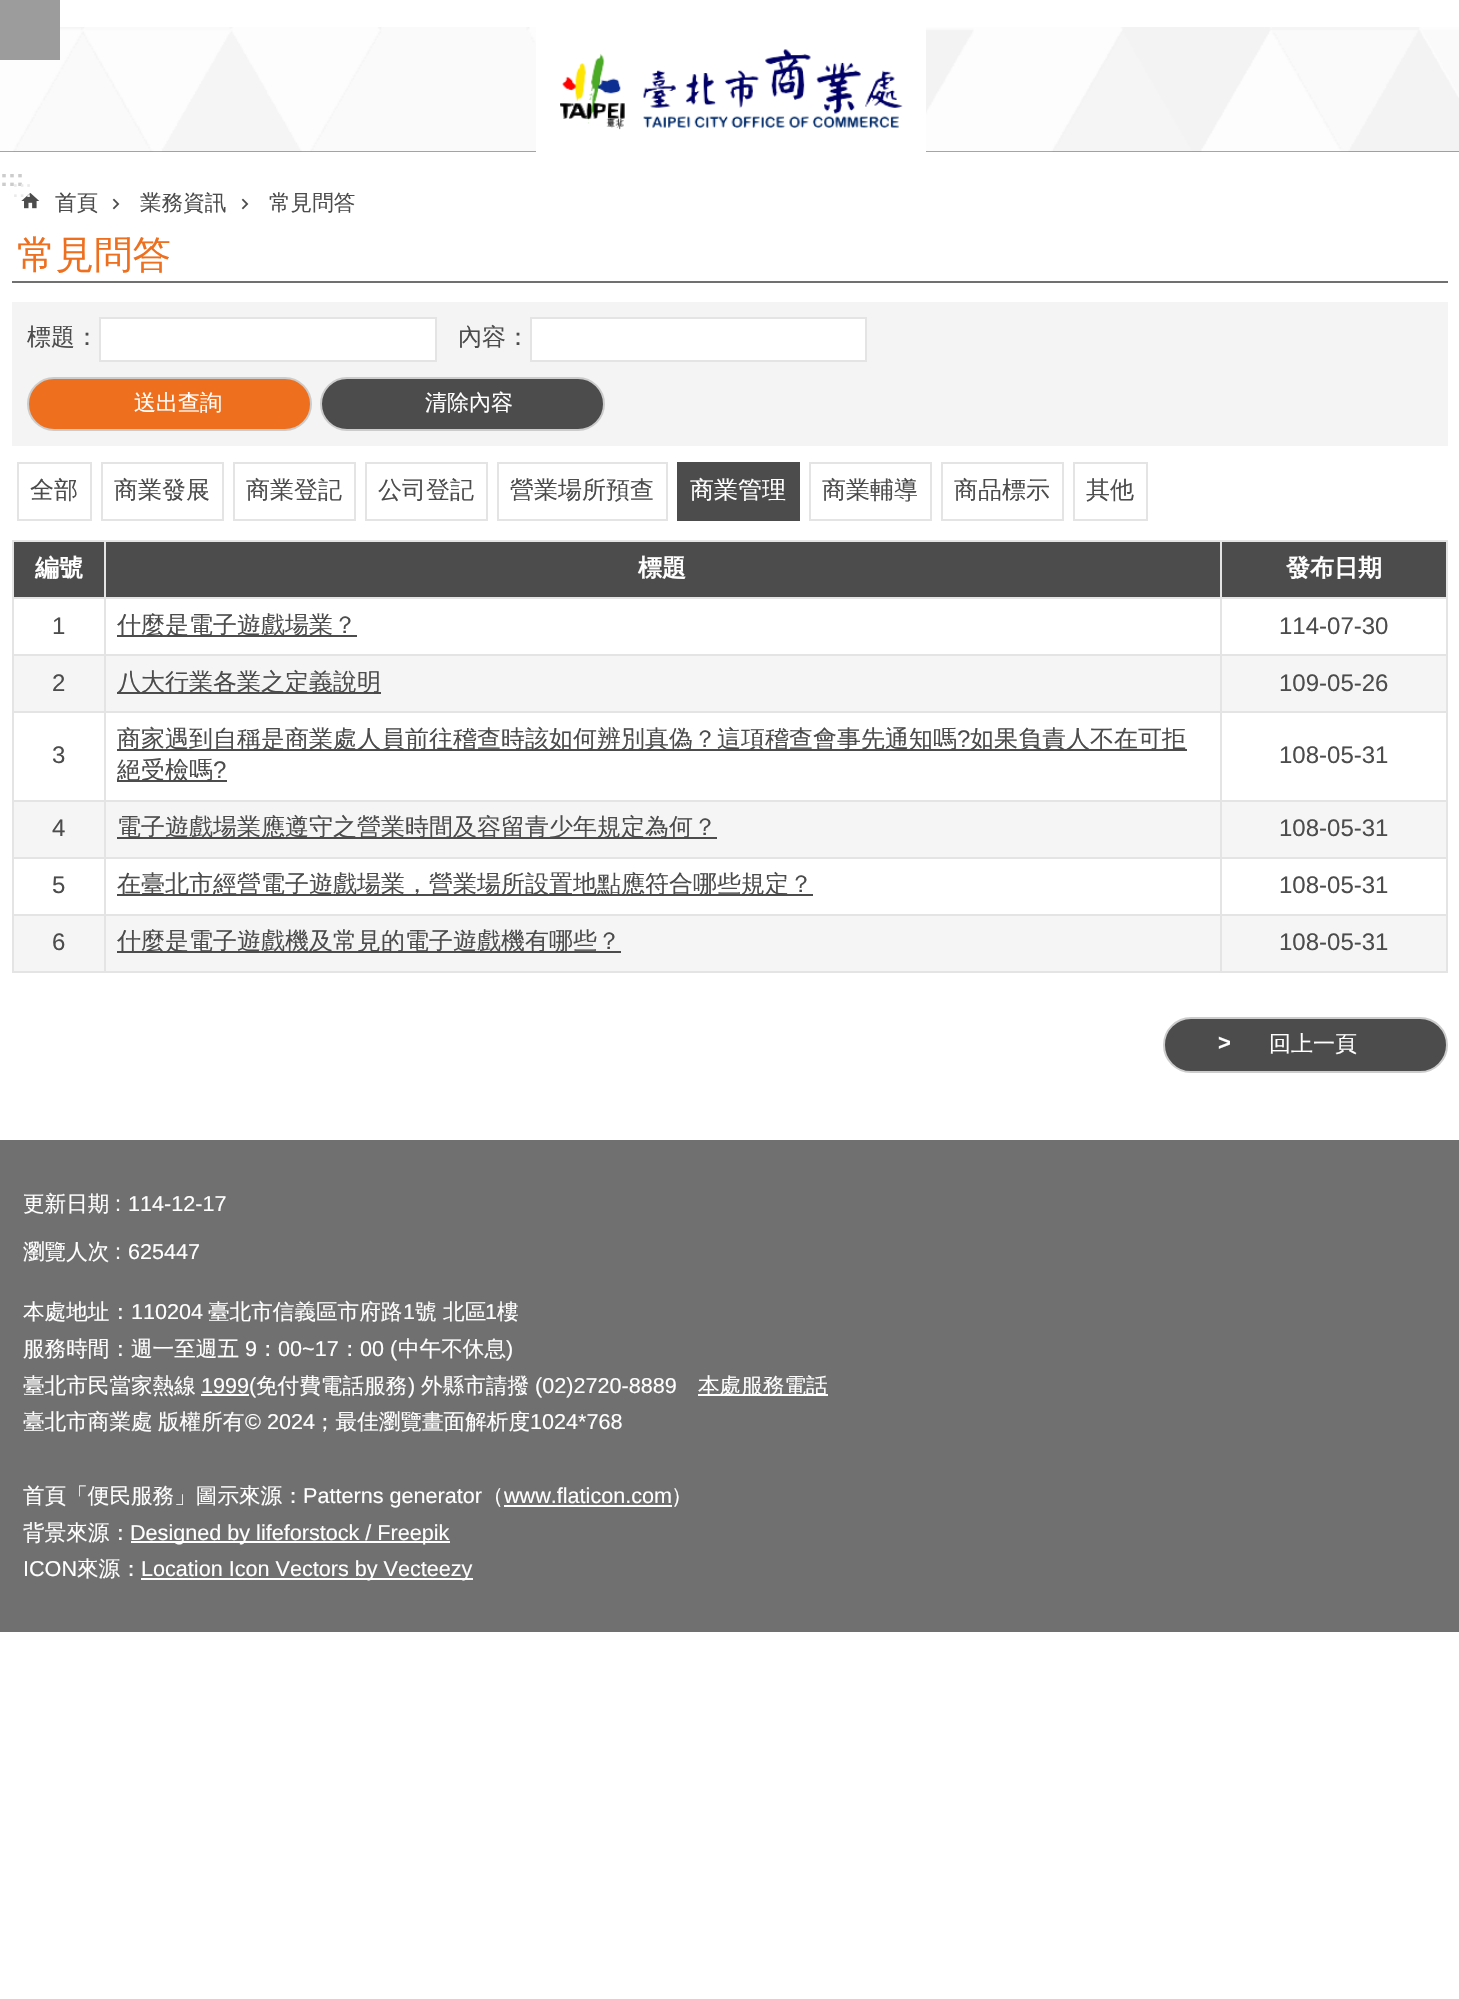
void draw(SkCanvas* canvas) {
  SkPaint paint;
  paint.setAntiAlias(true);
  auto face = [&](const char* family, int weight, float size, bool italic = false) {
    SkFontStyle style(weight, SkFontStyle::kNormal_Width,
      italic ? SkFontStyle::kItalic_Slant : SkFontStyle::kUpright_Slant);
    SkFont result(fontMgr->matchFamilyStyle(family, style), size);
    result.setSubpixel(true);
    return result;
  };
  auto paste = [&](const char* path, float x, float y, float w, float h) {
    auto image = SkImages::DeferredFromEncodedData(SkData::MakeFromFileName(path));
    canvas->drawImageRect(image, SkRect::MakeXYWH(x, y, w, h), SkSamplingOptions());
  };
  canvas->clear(0xffffffff);
  paint.setColor(0xff4c4c4c);
  canvas->drawRect(SkRect::MakeXYWH(0, 151, 1459, 1), paint);
  paste("img/1.png", 0, 27, 1459, 125);
  paint.setColor(0xff9c9c9c);
  canvas->drawRect(SkRect::MakeXYWH(0, 0, 60, 60), paint);
  paint.setColor(0xffffffff);
  canvas->drawRect(SkRect::MakeXYWH(536, 27, 390, 125), paint);
  paste("img/2.png", 560, 49, 343, 81);
  paste("img/3.png", 21, 193, 19, 16);
  paste("img/4.png", 112, 198, 8, 12);
  paste("img/4.png", 241, 198, 8, 12);
  paint.setColor(0xff707070);
  canvas->drawRect(SkRect::MakeXYWH(12, 281, 1436, 2), paint);
  paint.setColor(0xfff4f4f4);
  canvas->drawRect(SkRect::MakeXYWH(12, 302, 1436, 144), paint);
  paint.setColor(0xffffffff);
  canvas->drawRect(SkRect::MakeXYWH(100, 318, 336, 43), paint);
  paint.setStroke(true);
  paint.setStrokeWidth(2);
  paint.setColor(0xffe4e4e4);
  canvas->drawRect(SkRect::MakeXYWH(100, 318, 336, 43), paint);
  paint.setStroke(false);
  paint.setColor(0xffffffff);
  canvas->drawRect(SkRect::MakeXYWH(531, 318, 335, 43), paint);
  paint.setStroke(true);
  paint.setColor(0xffe4e4e4);
  canvas->drawRect(SkRect::MakeXYWH(531, 318, 335, 43), paint);
  paint.setStroke(false);
  paint.setColor(0xffee701e);
  canvas->drawRoundRect(SkRect::MakeXYWH(28, 378, 283, 52), 26, 26, paint);
  paint.setStroke(true);
  paint.setColor(0xffcccccc);
  canvas->drawRoundRect(SkRect::MakeXYWH(28, 378, 283, 52), 26, 26, paint);
  paint.setStroke(false);
  paint.setColor(0xff4c4c4c);
  canvas->drawRoundRect(SkRect::MakeXYWH(321, 378, 283, 52), 26, 26, paint);
  paint.setStroke(true);
  paint.setColor(0xffcccccc);
  canvas->drawRoundRect(SkRect::MakeXYWH(321, 378, 283, 52), 26, 26, paint);
  paint.setColor(0xffe4e4e4);
  canvas->drawRect(SkRect::MakeXYWH(18, 463, 73, 57), paint);
  canvas->drawRect(SkRect::MakeXYWH(102, 463, 121, 57), paint);
  canvas->drawRect(SkRect::MakeXYWH(234, 463, 121, 57), paint);
  canvas->drawRect(SkRect::MakeXYWH(366, 463, 121, 57), paint);
  canvas->drawRect(SkRect::MakeXYWH(498, 463, 169, 57), paint);
  paint.setStroke(false);
  paint.setColor(0xff4c4c4c);
  canvas->drawRect(SkRect::MakeXYWH(677, 462, 123, 59), paint);
  paint.setStroke(true);
  paint.setColor(0xffe4e4e4);
  canvas->drawRect(SkRect::MakeXYWH(810, 463, 121, 57), paint);
  canvas->drawRect(SkRect::MakeXYWH(942, 463, 121, 57), paint);
  canvas->drawRect(SkRect::MakeXYWH(1074, 463, 73, 57), paint);
  paint.setStroke(false);
  {
    const struct { float x, y, w, h; SkColor color; } items[] = {
      {14, 542, 90, 55, 0xff4c4c4c},
      {1220, 540, 228, 2, 0xffe4e4e4},
      {1220, 597, 228, 2, 0xffe4e4e4},
      {1220, 654, 228, 2, 0xffe4e4e4},
      {14, 656, 1432, 55, 0xfff5f5f5},
      {1220, 711, 228, 2, 0xffe4e4e4},
      {1220, 800, 228, 2, 0xffe4e4e4},
      {14, 802, 1432, 55, 0xfff5f5f5},
      {1220, 857, 228, 2, 0xffe4e4e4},
      {1220, 914, 228, 2, 0xffe4e4e4},
      {14, 916, 1432, 55, 0xfff5f5f5},
      {1446, 914, 2, 58, 0xffe4e4e4},
      {1220, 971, 228, 2, 0xffe4e4e4},
      {1220, 914, 2, 58, 0xffe4e4e4},
      {104, 914, 1117, 2, 0xffe4e4e4},
      {1220, 857, 2, 58, 0xffe4e4e4},
      {104, 857, 1117, 2, 0xffe4e4e4},
      {1220, 800, 2, 58, 0xffe4e4e4},
      {104, 800, 1117, 2, 0xffe4e4e4},
      {1220, 711, 2, 90, 0xffe4e4e4},
      {104, 711, 1117, 2, 0xffe4e4e4},
      {1220, 654, 2, 59, 0xffe4e4e4},
      {104, 654, 1117, 2, 0xffe4e4e4},
      {1220, 597, 2, 59, 0xffe4e4e4},
      {104, 597, 1117, 2, 0xffe4e4e4},
      {1220, 540, 2, 59, 0xffe4e4e4},
      {104, 540, 1117, 2, 0xffe4e4e4},
      {104, 971, 1117, 2, 0xffe4e4e4},
      {104, 914, 2, 58, 0xffe4e4e4},
      {12, 914, 93, 2, 0xffe4e4e4},
      {104, 857, 2, 58, 0xffe4e4e4},
      {12, 857, 93, 2, 0xffe4e4e4},
      {104, 800, 2, 58, 0xffe4e4e4},
      {12, 800, 93, 2, 0xffe4e4e4},
      {104, 711, 2, 90, 0xffe4e4e4},
      {12, 711, 93, 2, 0xffe4e4e4},
      {104, 654, 2, 59, 0xffe4e4e4},
      {12, 654, 93, 2, 0xffe4e4e4},
      {104, 597, 2, 59, 0xffe4e4e4},
      {12, 597, 93, 2, 0xffe4e4e4},
      {104, 540, 2, 59, 0xffe4e4e4},
      {12, 540, 93, 2, 0xffe4e4e4},
      {12, 971, 93, 2, 0xffe4e4e4},
      {12, 914, 2, 58, 0xffe4e4e4},
      {12, 857, 2, 58, 0xffe4e4e4},
      {12, 800, 2, 58, 0xffe4e4e4},
      {12, 711, 2, 90, 0xffe4e4e4},
      {12, 654, 2, 59, 0xffe4e4e4},
      {12, 597, 2, 59, 0xffe4e4e4},
      {12, 540, 2, 59, 0xffe4e4e4},
      {106, 542, 1114, 55, 0xff4c4c4c},
      {1222, 542, 224, 55, 0xff4c4c4c},
      {1446, 857, 2, 58, 0xffe4e4e4},
      {1446, 800, 2, 58, 0xffe4e4e4},
      {1446, 711, 2, 90, 0xffe4e4e4},
      {1446, 654, 2, 59, 0xffe4e4e4},
      {1446, 597, 2, 59, 0xffe4e4e4},
      {1446, 540, 2, 59, 0xffe4e4e4},
      {117, 635, 240, 2, 0xff4c4c4c},
      {117, 692, 264, 2, 0xff4c4c4c},
      {117, 749, 1070, 2, 0xff4c4c4c},
      {117, 780, 110, 2, 0xff4c4c4c},
      {117, 837, 600, 2, 0xff4c4c4c},
      {117, 894, 696, 2, 0xff4c4c4c},
      {117, 951, 504, 2, 0xff4c4c4c},
    };
    for (auto [x, y, w, h, color] : items) {
      paint.setColor(color);
      canvas->drawRect(SkRect::MakeXYWH(x, y, w, h), paint);
    }
  }
  canvas->drawRoundRect(SkRect::MakeXYWH(1164, 1018, 283, 54), 27, 27, paint);
  paint.setStroke(true);
  paint.setColor(0xffcccccc);
  canvas->drawRoundRect(SkRect::MakeXYWH(1164, 1018, 283, 54), 27, 27, paint);
  paint.setStroke(false);
  {
    const struct { float x, y, w, h; SkColor color; } items[] = {
      {0, 1140, 1459, 492, 0xff707070},
      {201, 1394, 48, 2, 0xffffffff},
      {698, 1394, 130, 2, 0xffffffff},
      {504, 1505, 168, 2, 0xffffffff},
      {131, 1541, 319, 2, 0xffffffff},
      {141, 1578, 332, 2, 0xffffffff},
    };
    for (auto [x, y, w, h, color] : items) {
      paint.setColor(color);
      canvas->drawRect(SkRect::MakeXYWH(x, y, w, h), paint);
    }
  }
  auto f0 = face("Liberation Sans", 700, 24);
  paint.setColor(0xffcccccc);
  canvas->drawString(":::", 0, 186, f0, paint);
  auto f1 = face("Liberation Sans", 400, 24);
  paint.setColor(0xffeaeaea);
  canvas->drawString(":::", 12, 197, f1, paint);
  auto f2 = face("WenQuanYi Zen Hei", 500, 21.6f);
  paint.setColor(0xff4c4c4c);
  {
    const struct { const char* s; float x, y; } items[] = {
      {"首頁", 55, 210},
      {"業務資訊", 140, 210},
      {"常見問答", 269, 210},
    };
    for (auto [s, x, y] : items) {
      canvas->drawString(s, x, y, f2, paint);
    }
  }
  auto f3 = face("WenQuanYi Zen Hei", 500, 38.5f);
  paint.setColor(0xffee701e);
  canvas->drawString("常見問答", 17, 268, f3, paint);
  auto f4 = face("WenQuanYi Zen Hei", 500, 24);
  paint.setColor(0xff4c4c4c);
  canvas->drawString("標題：", 27, 345, f4, paint);
  canvas->drawString("內容：", 458, 345, f4, paint);
  auto f5 = face("WenQuanYi Zen Hei", 500, 22);
  paint.setColor(0xffffffff);
  canvas->drawString("送出查詢", 134, 410, f5, paint);
  canvas->drawString("清除內容", 425, 410, f5, paint);
  paint.setColor(0xff4c4c4c);
  {
    const struct { const char* s; float x, y; } items[] = {
      {"全部", 30, 498},
      {"商業發展", 114, 498},
      {"商業登記", 246, 498},
      {"公司登記", 378, 498},
      {"營業場所預查", 510, 498},
    };
    for (auto [s, x, y] : items) {
      canvas->drawString(s, x, y, f4, paint);
    }
  }
  paint.setColor(0xffffffff);
  canvas->drawString("商業管理", 690, 498, f4, paint);
  paint.setColor(0xff4c4c4c);
  {
    const struct { const char* s; float x, y; } items[] = {
      {"商業輔導", 822, 498},
      {"商品標示", 954, 498},
      {"其他", 1086, 498},
    };
    for (auto [s, x, y] : items) {
      canvas->drawString(s, x, y, f4, paint);
    }
  }
  auto f6 = face("WenQuanYi Zen Hei", 700, 24);
  paint.setColor(0xffffffff);
  {
    const struct { const char* s; float x, y; } items[] = {
      {"編號", 35, 576},
      {"標題", 638, 576},
      {"發布日期", 1286, 576},
    };
    for (auto [s, x, y] : items) {
      canvas->drawString(s, x, y, f6, paint);
    }
  }
  paint.setColor(0xff4c4c4c);
  canvas->drawString("1", 52, 634, f1, paint);
  canvas->drawString("什麼是電子遊戲場業？", 117, 633, f4, paint);
  canvas->drawString("114-07-30", 1279, 634, f1, paint);
  canvas->drawString("2", 52, 691, f1, paint);
  canvas->drawString("八大行業各業之定義說明", 117, 690, f4, paint);
  canvas->drawString("109-05-26", 1279, 691, f1, paint);
  canvas->drawString("3", 52, 763, f1, paint);
  canvas->drawString("商家遇到自稱是商業處人員前往稽查時該如何辨別真偽？這項稽查會事先通知嗎", 117, 747, f4, paint);
  canvas->drawString("?", 957, 747, f1, paint);
  canvas->drawString("如果負責人不在可拒", 970, 747, f4, paint);
  canvas->drawString("絕受檢嗎", 117, 778, f4, paint);
  {
    const struct { const char* s; float x, y; } items[] = {
      {"?", 213, 778},
      {"108-05-31", 1279, 763},
      {"4", 52, 836},
    };
    for (auto [s, x, y] : items) {
      canvas->drawString(s, x, y, f1, paint);
    }
  }
  canvas->drawString("電子遊戲場業應遵守之營業時間及容留青少年規定為何？", 117, 835, f4, paint);
  canvas->drawString("108-05-31", 1279, 836, f1, paint);
  canvas->drawString("5", 52, 893, f1, paint);
  canvas->drawString("在臺北市經營電子遊戲場業，營業場所設置地點應符合哪些規定？", 117, 892, f4, paint);
  canvas->drawString("108-05-31", 1279, 893, f1, paint);
  canvas->drawString("6", 52, 950, f1, paint);
  canvas->drawString("什麼是電子遊戲機及常見的電子遊戲機有哪些？", 117, 949, f4, paint);
  canvas->drawString("108-05-31", 1279, 950, f1, paint);
  auto f7 = face("Liberation Sans", 700, 22);
  paint.setColor(0xffffffff);
  canvas->drawString(">", 1218, 1050, f7, paint);
  canvas->drawString("回上一頁", 1269, 1051, f5, paint);
  canvas->drawString("更新日期", 23, 1211, f2, paint);
  auto f8 = face("Liberation Sans", 400, 21.6f);
  canvas->drawString(":", 115, 1211, f8, paint);
  canvas->drawString("114-12-17", 128, 1211, f8, paint);
  canvas->drawString("瀏覽人次", 23, 1259, f2, paint);
  canvas->drawString(":", 115, 1259, f8, paint);
  canvas->drawString("625447", 128, 1259, f8, paint);
  canvas->drawString("本處地址：", 23, 1319, f2, paint);
  canvas->drawString("110204", 131, 1319, f8, paint);
  canvas->drawString("臺北市信義區市府路", 208, 1319, f2, paint);
  canvas->drawString("1", 403, 1319, f8, paint);
  canvas->drawString("號 北區", 415, 1319, f2, paint);
  canvas->drawString("1", 485, 1319, f8, paint);
  canvas->drawString("樓", 497, 1319, f2, paint);
  canvas->drawString("服務時間：週一至週五", 23, 1356, f2, paint);
  canvas->drawString("9", 245, 1356, f8, paint);
  canvas->drawString("：", 257, 1356, f2, paint);
  canvas->drawString("00~17", 278, 1356, f8, paint);
  canvas->drawString("：", 339, 1356, f2, paint);
  canvas->drawString("00 (", 360, 1356, f8, paint);
  canvas->drawString("中午不休息", 398, 1356, f2, paint);
  canvas->drawString(")", 506, 1356, f8, paint);
  canvas->drawString("臺北市民當家熱線", 23, 1393, f2, paint);
  canvas->drawString("1999(", 201, 1393, f8, paint);
  canvas->drawString("免付費電話服務", 256, 1393, f2, paint);
  canvas->drawString(")", 408, 1393, f8, paint);
  canvas->drawString("外縣市請撥", 421, 1393, f2, paint);
  canvas->drawString("(02)2720-8889", 535, 1393, f8, paint);
  {
    const struct { const char* s; float x, y; } items[] = {
      {"本處服務電話", 698, 1393},
      {"臺北市商業處", 23, 1429},
      {"版權所有", 158, 1429},
    };
    for (auto [s, x, y] : items) {
      canvas->drawString(s, x, y, f2, paint);
    }
  }
  canvas->drawString("© 2024", 245, 1429, f8, paint);
  canvas->drawString("；最佳瀏覽畫面解析度", 314, 1429, f2, paint);
  canvas->drawString("1024*768", 530, 1429, f8, paint);
  canvas->drawString("首頁「便民服務」圖示來源：", 23, 1503, f2, paint);
  canvas->drawString("Patterns generator", 303, 1503, f8, paint);
  canvas->drawString("（", 482, 1503, f2, paint);
  canvas->drawString("www.flaticon.com", 504, 1503, f8, paint);
  canvas->drawString("）", 671, 1503, f2, paint);
  canvas->drawString("背景來源：", 23, 1540, f2, paint);
  canvas->drawString("Designed by lifeforstock / Freepik", 130, 1540, f8, paint);
  canvas->drawString("ICON", 23, 1576, f8, paint);
  canvas->drawString("來源：", 77, 1576, f2, paint);
  canvas->drawString("Location Icon Vectors by Vecteezy", 141, 1576, f8, paint);
}
